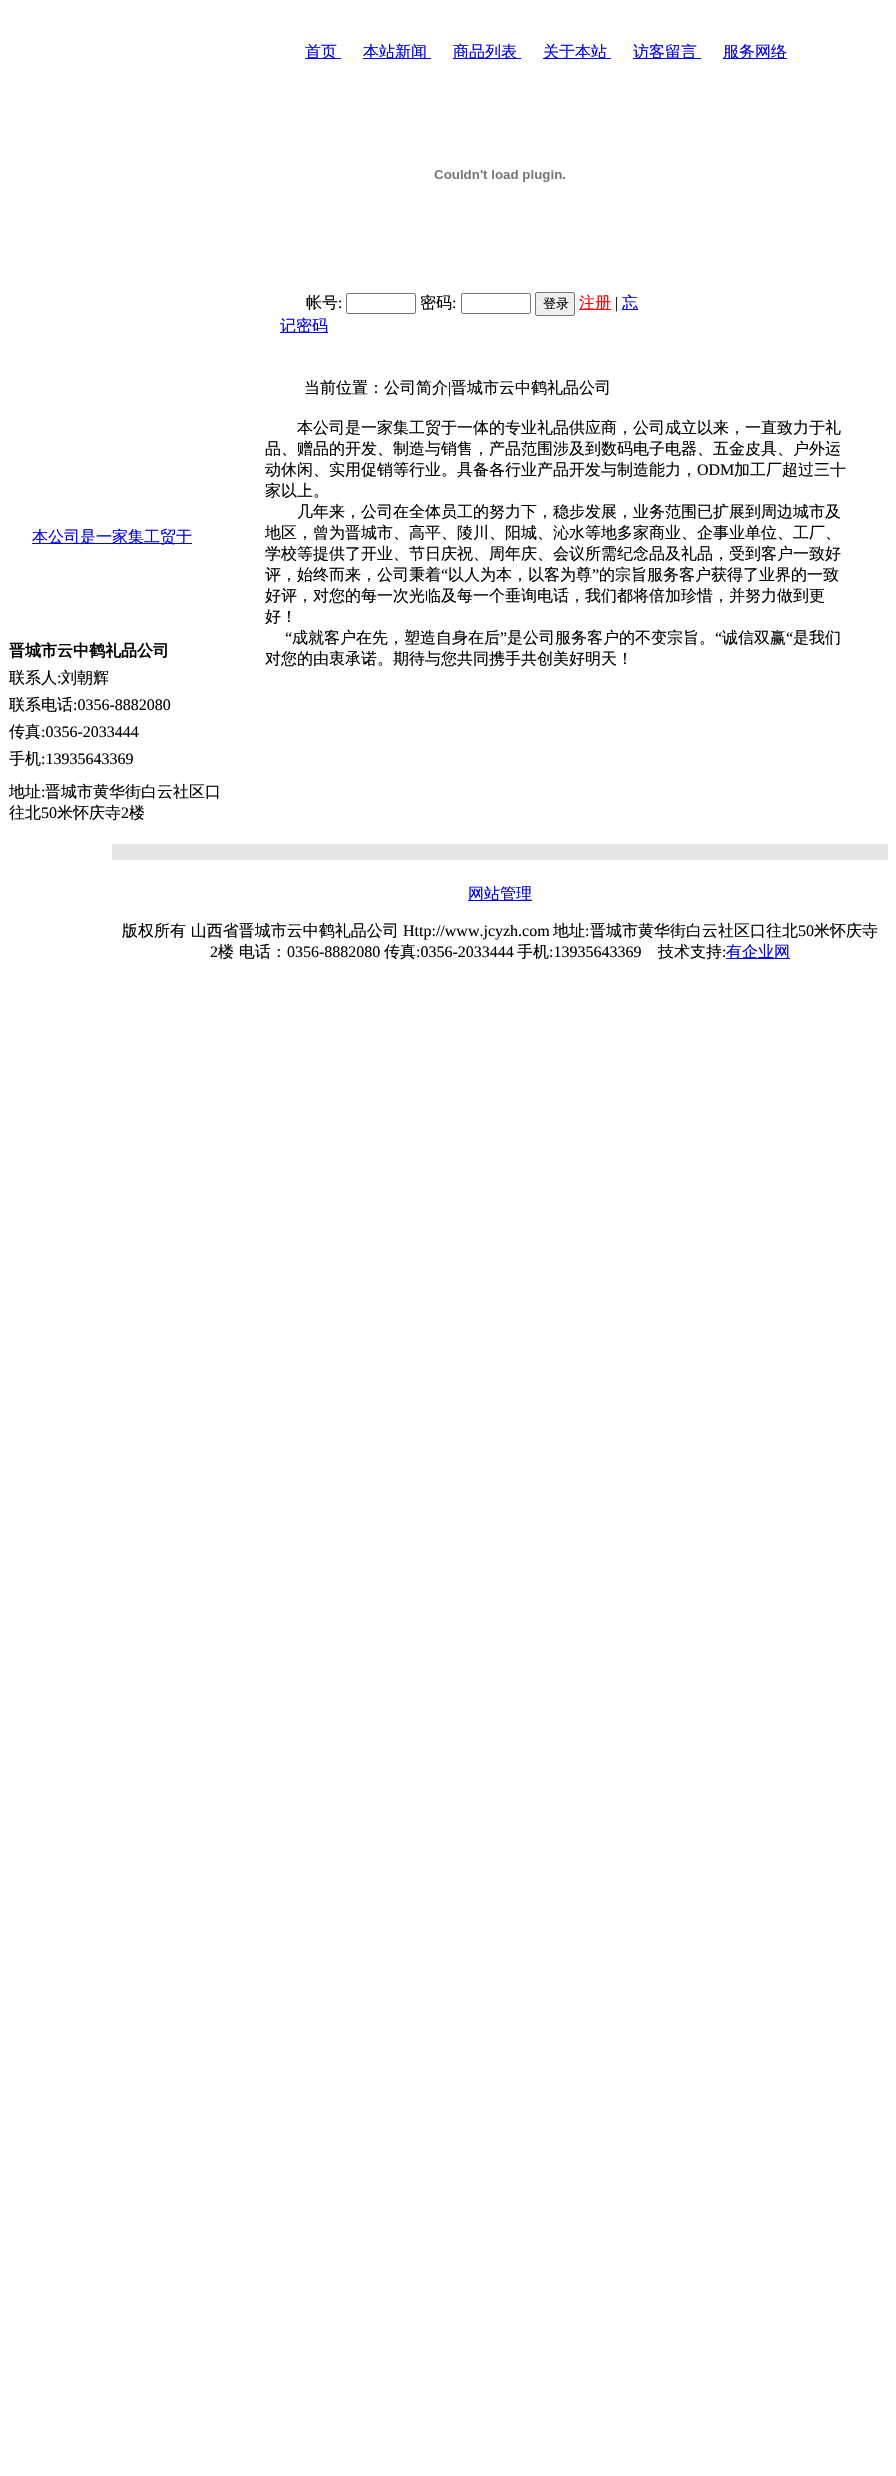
void draw(SkCanvas* canvas) {
  SkPaint paint;
  paint.setAntiAlias(true);
  auto face = [&](const char* family, int weight, float size, bool italic = false) {
    SkFontStyle style(weight, SkFontStyle::kNormal_Width,
      italic ? SkFontStyle::kItalic_Slant : SkFontStyle::kUpright_Slant);
    SkFont result(fontMgr->matchFamilyStyle(family, style), size);
    result.setSubpixel(true);
    return result;
  };
  auto paste = [&](const char* path, float x, float y, float w, float h) {
    auto image = SkImages::DeferredFromEncodedData(SkData::MakeFromFileName(path));
    canvas->drawImageRect(image, SkRect::MakeXYWH(x, y, w, h), SkSamplingOptions());
  };
  canvas->clear(0xffffffff);
  {
    const struct { float x, y, w, h; SkColor color; } items[] = {
      {305, 58, 36, 1, 0xff0000ee},
      {363, 58, 68, 1, 0xff0000ee},
      {453, 58, 68, 1, 0xff0000ee},
      {543, 58, 68, 1, 0xff0000ee},
      {633, 58, 68, 1, 0xff0000ee},
      {723, 58, 64, 1, 0xff0000ee},
    };
    for (auto [x, y, w, h, color] : items) {
      paint.setColor(color);
      canvas->drawRect(SkRect::MakeXYWH(x, y, w, h), paint);
    }
  }
  paste("img/1.png", 434, 170, 131, 12);
  paint.setStroke(true);
  paint.setStrokeWidth(1);
  paint.setColor(0xff767676);
  canvas->drawRoundRect(SkRect::MakeXYWH(346.5f, 293.5f, 69, 20), 1.5f, 1.5f, paint);
  canvas->drawRoundRect(SkRect::MakeXYWH(461.5f, 293.5f, 69, 20), 1.5f, 1.5f, paint);
  paint.setStroke(false);
  paint.setColor(0xffefefef);
  canvas->drawRoundRect(SkRect::MakeXYWH(535.5f, 292.5f, 39, 23), 1.5f, 1.5f, paint);
  paint.setStroke(true);
  paint.setColor(0xff767676);
  canvas->drawRoundRect(SkRect::MakeXYWH(535.5f, 292.5f, 39, 23), 1.5f, 1.5f, paint);
  paint.setStroke(false);
  {
    const struct { float x, y, w, h; SkColor color; } items[] = {
      {579, 309, 32, 1, 0xffff0000},
      {622, 309, 16, 1, 0xff0000ee},
      {280, 332, 48, 1, 0xff0000ee},
      {32, 543, 160, 1, 0xff0000ee},
      {112, 844, 776, 16, 0xffe6e6e6},
      {468, 900, 64, 1, 0xff0000ee},
      {726, 958, 64, 1, 0xff0000ee},
    };
    for (auto [x, y, w, h, color] : items) {
      paint.setColor(color);
      canvas->drawRect(SkRect::MakeXYWH(x, y, w, h), paint);
    }
  }
  auto f0 = face("WenQuanYi Zen Hei", 500, 16);
  {
    const struct { const char* s; float x, y; } items[] = {
      {"首页", 305, 57},
      {"本站新闻", 363, 57},
      {"商品列表", 453, 57},
      {"关于本站", 543, 57},
      {"访客留言", 633, 57},
      {"服务网络", 723, 57},
    };
    for (auto [s, x, y] : items) {
      canvas->drawString(s, x, y, f0, paint);
    }
  }
  paint.setColor(0xff000000);
  canvas->drawString("帐号", 306, 308, f0, paint);
  auto f1 = face("Liberation Serif", 400, 16);
  canvas->drawString(":", 338, 308, f1, paint);
  canvas->drawString("密码", 420, 308, f0, paint);
  canvas->drawString(":", 452, 308, f1, paint);
  auto f2 = face("WenQuanYi Zen Hei", 500, 13);
  canvas->drawString("登录", 543, 308, f2, paint);
  paint.setColor(0xffff0000);
  canvas->drawString("注册", 579, 308, f0, paint);
  paint.setColor(0xff000000);
  canvas->drawString("|", 615, 308, f1, paint);
  paint.setColor(0xff0000ee);
  {
    const struct { const char* s; float x, y; } items[] = {
      {"忘", 622, 308},
      {"记密码", 280, 331},
      {"本公司是一家集工贸于", 32, 542},
    };
    for (auto [s, x, y] : items) {
      canvas->drawString(s, x, y, f0, paint);
    }
  }
  auto f3 = face("WenQuanYi Zen Hei", 700, 16);
  paint.setColor(0xff000000);
  canvas->drawString("晋城市云中鹤礼品公司", 9, 656, f3, paint);
  canvas->drawString("联系人", 9, 683, f0, paint);
  canvas->drawString(":", 57, 683, f1, paint);
  canvas->drawString("刘朝辉", 61, 683, f0, paint);
  canvas->drawString("联系电话", 9, 710, f0, paint);
  canvas->drawString(":0356-8882080", 73, 710, f1, paint);
  canvas->drawString("传真", 9, 737, f0, paint);
  canvas->drawString(":0356-2033444", 41, 737, f1, paint);
  canvas->drawString("手机", 9, 764, f0, paint);
  canvas->drawString(":13935643369", 41, 764, f1, paint);
  canvas->drawString("地址", 9, 797, f0, paint);
  canvas->drawString(":", 41, 797, f1, paint);
  canvas->drawString("晋城市黄华街白云社区口", 45, 797, f0, paint);
  canvas->drawString("往北", 9, 818, f0, paint);
  canvas->drawString("50", 41, 818, f1, paint);
  canvas->drawString("米怀庆寺", 57, 818, f0, paint);
  canvas->drawString("2", 121, 818, f1, paint);
  canvas->drawString("楼", 129, 818, f0, paint);
  canvas->drawString("当前位置：公司简介", 304, 393, f0, paint);
  canvas->drawString("|", 448, 393, f1, paint);
  {
    const struct { const char* s; float x, y; } items[] = {
      {"晋城市云中鹤礼品公司", 451, 393},
      {"本公司是一家集工贸于一体的专业礼品供应商，公司成立以来，一直致力于礼", 297, 433},
      {"品、赠品的开发、制造与销售，产品范围涉及到数码电子电器、五金皮具、户外运", 265, 454},
      {"动休闲、实用促销等行业。具备各行业产品开发与制造能力，", 265, 475},
    };
    for (auto [s, x, y] : items) {
      canvas->drawString(s, x, y, f0, paint);
    }
  }
  canvas->drawString("ODM", 697, 475, f1, paint);
  {
    const struct { const char* s; float x, y; } items[] = {
      {"加工厂超过三十", 734, 475},
      {"家以上。", 265, 496},
      {"几年来，公司在全体员工的努力下，稳步发展，业务范围已扩展到周边城市及", 297, 517},
      {"地区，曾为晋城市、高平、陵川、阳城、沁水等地多家商业、企事业单位、工厂、", 265, 538},
      {"学校等提供了开业、节日庆祝、周年庆、会议所需纪念品及礼品，受到客户一致好", 265, 559},
      {"评，始终而来，公司秉着", 265, 580},
    };
    for (auto [s, x, y] : items) {
      canvas->drawString(s, x, y, f0, paint);
    }
  }
  canvas->drawString("“", 441, 580, f1, paint);
  canvas->drawString("以人为本，以客为尊", 448, 580, f0, paint);
  canvas->drawString("”", 592, 580, f1, paint);
  {
    const struct { const char* s; float x, y; } items[] = {
      {"的宗旨服务客户获得了业界的一致", 599, 580},
      {"好评，对您的每一次光临及每一个垂询电话，我们都将倍加珍惜，并努力做到更", 265, 601},
      {"好！", 265, 622},
    };
    for (auto [s, x, y] : items) {
      canvas->drawString(s, x, y, f0, paint);
    }
  }
  canvas->drawString("“", 285, 643, f1, paint);
  canvas->drawString("成就客户在先，塑造自身在后", 292, 643, f0, paint);
  canvas->drawString("”", 500, 643, f1, paint);
  canvas->drawString("是公司服务客户的不变宗旨。", 507, 643, f0, paint);
  canvas->drawString("“", 715, 643, f1, paint);
  canvas->drawString("诚信双赢", 722, 643, f0, paint);
  canvas->drawString("“", 786, 643, f1, paint);
  canvas->drawString("是我们", 793, 643, f0, paint);
  canvas->drawString("对您的由衷承诺。期待与您共同携手共创美好明天！", 265, 664, f0, paint);
  paint.setColor(0xff0000ee);
  canvas->drawString("网站管理", 468, 899, f0, paint);
  paint.setColor(0xff000000);
  canvas->drawString("版权所有 山西省晋城市云中鹤礼品公司", 122, 936, f0, paint);
  canvas->drawString("Http://www.jcyzh.com", 403, 936, f1, paint);
  canvas->drawString("地址", 553, 936, f0, paint);
  canvas->drawString(":", 585, 936, f1, paint);
  canvas->drawString("晋城市黄华街白云社区口往北", 590, 936, f0, paint);
  canvas->drawString("50", 798, 936, f1, paint);
  canvas->drawString("米怀庆寺", 814, 936, f0, paint);
  canvas->drawString("2", 210, 957, f1, paint);
  canvas->drawString("楼 电话：", 218, 957, f0, paint);
  canvas->drawString("0356-8882080", 287, 957, f1, paint);
  canvas->drawString("传真", 384, 957, f0, paint);
  canvas->drawString(":0356-2033444", 416, 957, f1, paint);
  canvas->drawString("手机", 517, 957, f0, paint);
  canvas->drawString(":13935643369", 549, 957, f1, paint);
  canvas->drawString("技术支持", 658, 957, f0, paint);
  canvas->drawString(":", 722, 957, f1, paint);
  paint.setColor(0xff0000ee);
  canvas->drawString("有企业网", 726, 957, f0, paint);
}
